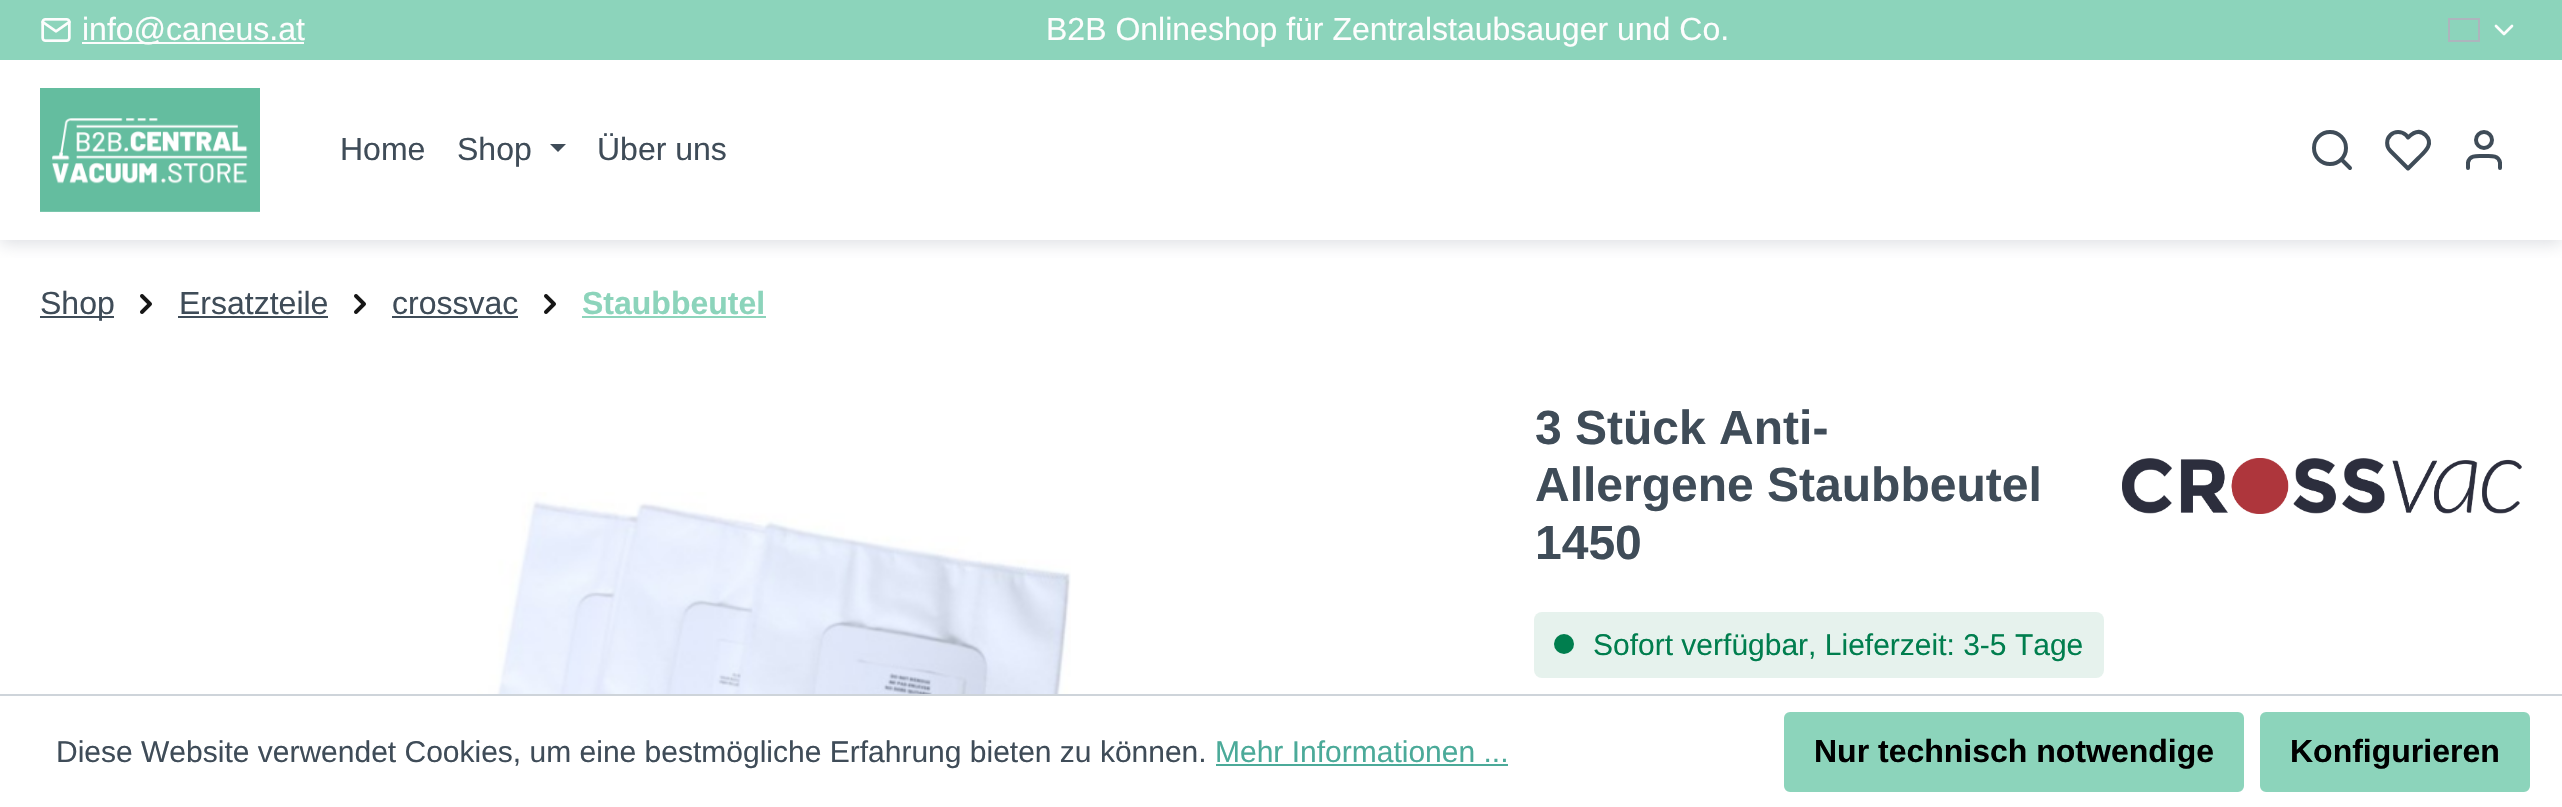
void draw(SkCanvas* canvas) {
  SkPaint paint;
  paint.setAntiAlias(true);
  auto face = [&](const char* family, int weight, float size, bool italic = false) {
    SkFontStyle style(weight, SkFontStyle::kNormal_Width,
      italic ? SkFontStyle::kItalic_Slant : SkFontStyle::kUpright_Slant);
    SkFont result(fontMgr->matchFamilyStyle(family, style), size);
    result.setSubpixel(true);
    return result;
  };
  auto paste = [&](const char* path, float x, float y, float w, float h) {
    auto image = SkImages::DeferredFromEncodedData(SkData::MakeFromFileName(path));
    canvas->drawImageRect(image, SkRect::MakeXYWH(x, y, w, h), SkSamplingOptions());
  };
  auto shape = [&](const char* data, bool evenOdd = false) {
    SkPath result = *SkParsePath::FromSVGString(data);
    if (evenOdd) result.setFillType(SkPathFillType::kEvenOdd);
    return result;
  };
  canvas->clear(0xffffffff);
  canvas->save();
  canvas->clipRect(SkRect::MakeXYWH(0, 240, 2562, 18));
  paint.setColor(0x80bbc0c7);
  paint.setMaskFilter(SkMaskFilter::MakeBlur(kNormal_SkBlurStyle, 8));
  canvas->drawRect(SkRect::MakeXYWH(0, 64, 2562, 180), paint);
  paint.setMaskFilter(nullptr);
  canvas->restore();
  paint.setColor(0xff8cd4bb);
  canvas->drawRect(SkRect::MakeXYWH(0, 0, 2562, 60), paint);
  paste("img/1.png", 41, 18, 30, 24);
  paint.setColor(0xfffdfdfd);
  canvas->drawRect(SkRect::MakeXYWH(82, 42, 222, 2), paint);
  paint.setStroke(true);
  paint.setStrokeWidth(2);
  paint.setColor(0xffadb5bd);
  canvas->drawRect(SkRect::MakeXYWH(2449, 19, 30, 22), paint);
  paint.setStrokeWidth(2.7f);
  paint.setStrokeCap(SkPaint::kRound_Cap);
  paint.setStrokeJoin(SkPaint::kRound_Join);
  paint.setColor(0xfffdfdfd);
  canvas->drawPath(shape("M2496 26L2504 34L2512 26"), paint);
  paste("img/2.png", 40, 88, 220, 124);
  paint.setStroke(false);
  paint.setColor(0xff3f4c58);
  canvas->drawPath(shape("M550 144H566L558 152Z"), paint);
  paint.setStroke(true);
  paint.setStrokeWidth(4);
  paint.setStrokeCap(SkPaint::kButt_Cap);
  paint.setStrokeJoin(SkPaint::kMiter_Join);
  canvas->drawCircle(2330, 148, 16, paint);
  paint.setStrokeCap(SkPaint::kRound_Cap);
  paint.setStrokeJoin(SkPaint::kRound_Join);
  canvas->drawPath(shape("M2350 168L2341.5 159.5"), paint);
  canvas->drawPath(shape("M2425.5 135C2419.5 129 2413 132.5 2408 137.5L2406 135C2401.5 131 2394.5 131 2390.5 135C2386 139.5 2386 146.5 2390.5 151L2408 168.5L2418.5 158C2424.5 152 2434.5 144 2425.5 135Z"), paint);
  canvas->drawPath(shape("M2500 168V162.5C2498.5 154.5 2490 156 2484 156C2478 156 2469.5 154.5 2468 162.5V168"), paint);
  paint.setStrokeCap(SkPaint::kButt_Cap);
  paint.setStrokeJoin(SkPaint::kMiter_Join);
  canvas->drawCircle(2484, 140, 8, paint);
  paint.setStroke(false);
  canvas->drawRect(SkRect::MakeXYWH(40, 316, 74, 2), paint);
  paste("img/3.png", 140, 294, 12, 20);
  canvas->drawRect(SkRect::MakeXYWH(178, 316, 150, 2), paint);
  paste("img/3.png", 354, 294, 12, 20);
  canvas->drawRect(SkRect::MakeXYWH(392, 316, 126, 2), paint);
  paste("img/3.png", 544, 294, 12, 20);
  paint.setColor(0xff8cd4bb);
  canvas->drawRect(SkRect::MakeXYWH(582, 316, 184, 2), paint);
  paste("img/4.png", 477, 492, 594, 202);
  paste("img/5.png", 2122, 458, 400, 56);
  paint.setColor(0xffe6f2ed);
  canvas->drawRoundRect(SkRect::MakeXYWH(1534, 612, 570, 66), 8, 8, paint);
  paint.setColor(0xff007e4e);
  canvas->drawCircle(1564, 644, 10, paint);
  paint.setColor(0xffced4da);
  canvas->drawRect(SkRect::MakeXYWH(0, 694, 2562, 2), paint);
  paint.setColor(0xff4baa99);
  canvas->drawRect(SkRect::MakeXYWH(1216, 764, 292, 2), paint);
  paint.setColor(0xff8cd4bb);
  canvas->drawRoundRect(SkRect::MakeXYWH(1785, 713, 458, 78), 5, 5, paint);
  paint.setStroke(true);
  paint.setStrokeWidth(2);
  canvas->drawRoundRect(SkRect::MakeXYWH(1785, 713, 458, 78), 5, 5, paint);
  paint.setStroke(false);
  canvas->drawRoundRect(SkRect::MakeXYWH(2261, 713, 268, 78), 5, 5, paint);
  paint.setStroke(true);
  canvas->drawRoundRect(SkRect::MakeXYWH(2261, 713, 268, 78), 5, 5, paint);
  auto f0 = face("Liberation Sans", 400, 32);
  paint.setStroke(false);
  paint.setColor(0xfffdfdfd);
  canvas->drawString("info@caneus.at", 82, 40, f0, paint);
  canvas->drawString("B2B Onlineshop für Zentralstaubsauger und Co.", 1046, 40, f0, paint);
  paint.setColor(0xff3f4c58);
  {
    const struct { const char* s; float x, y; } items[] = {
      {"Home", 340, 160},
      {"Shop", 457, 160},
      {"Über uns", 597, 160},
      {"Shop", 40, 314},
      {"Ersatzteile", 179, 314},
      {"crossvac", 392, 314},
    };
    for (auto [s, x, y] : items) {
      canvas->drawString(s, x, y, f0, paint);
    }
  }
  auto f1 = face("Liberation Sans", 700, 32);
  paint.setColor(0xff8cd4bb);
  canvas->drawString("Staubbeutel", 582, 314, f1, paint);
  auto f2 = face("Liberation Sans", 700, 48);
  paint.setColor(0xff3f4c58);
  {
    const struct { const char* s; float x, y; } items[] = {
      {"3 Stück Anti-", 1535, 444},
      {"Allergene Staubbeutel", 1535, 501},
      {"1450", 1535, 559},
    };
    for (auto [s, x, y] : items) {
      canvas->drawString(s, x, y, f2, paint);
    }
  }
  auto f3 = face("Liberation Sans", 400, 30);
  paint.setColor(0xff007e4e);
  canvas->drawString("Sofort verfügbar, Lieferzeit: 3-5 Tage", 1593, 655, f3, paint);
  paint.setColor(0xff3f4c58);
  canvas->drawString("Diese Website verwendet Cookies, um eine bestmögliche Erfahrung bieten zu können.", 56, 762, f3, paint);
  paint.setColor(0xff4baa99);
  canvas->drawString("Mehr Informationen ...", 1215, 762, f3, paint);
  paint.setColor(0xff000000);
  canvas->drawString("Nur technisch notwendige", 1814, 762, f1, paint);
  canvas->drawString("Konfigurieren", 2290, 762, f1, paint);
}
